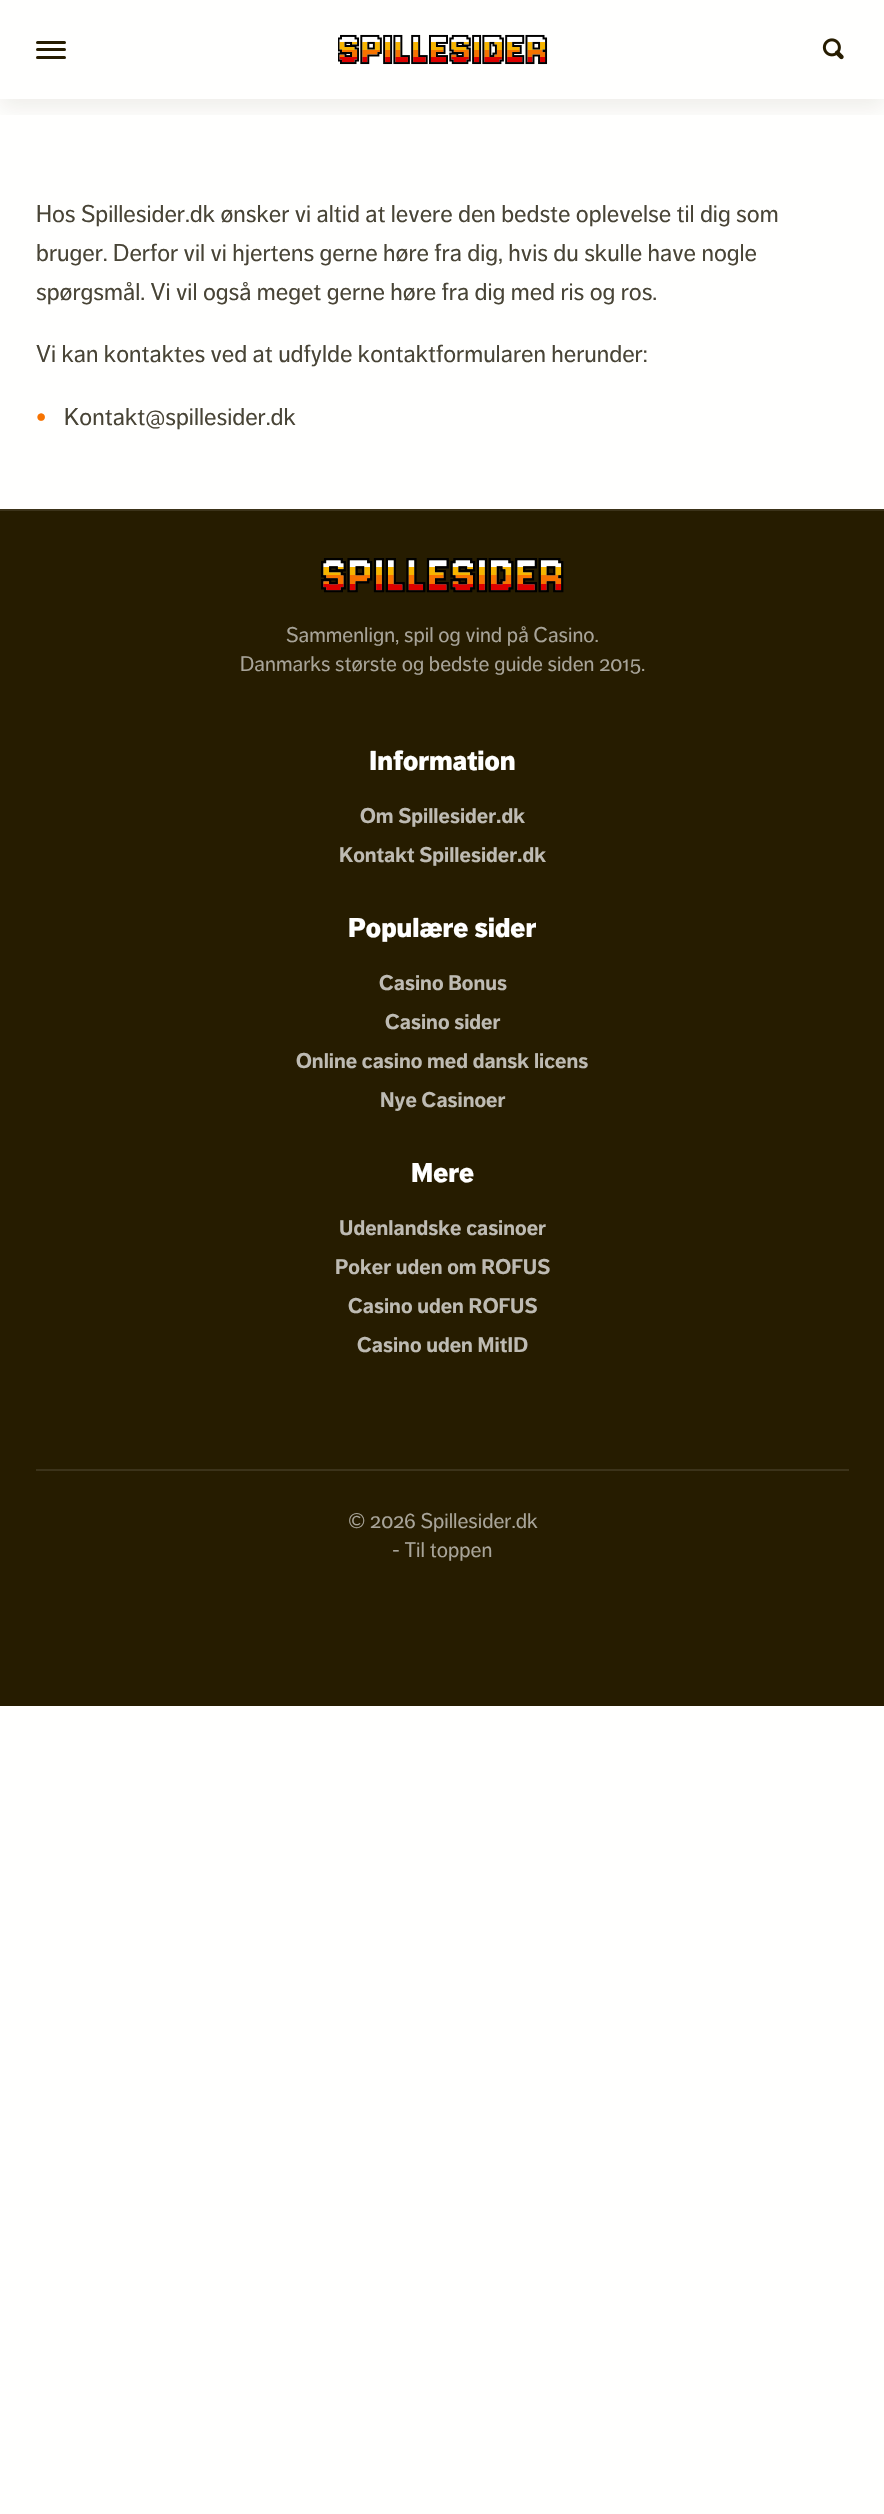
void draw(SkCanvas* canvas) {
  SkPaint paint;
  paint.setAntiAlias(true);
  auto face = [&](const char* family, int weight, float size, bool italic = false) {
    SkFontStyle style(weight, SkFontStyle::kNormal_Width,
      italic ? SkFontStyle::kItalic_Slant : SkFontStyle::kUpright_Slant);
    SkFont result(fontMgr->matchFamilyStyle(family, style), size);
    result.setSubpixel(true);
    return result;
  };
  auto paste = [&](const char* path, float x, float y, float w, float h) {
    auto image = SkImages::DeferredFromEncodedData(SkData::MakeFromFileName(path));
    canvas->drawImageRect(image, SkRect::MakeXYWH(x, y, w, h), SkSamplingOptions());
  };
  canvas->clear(0xfffffffe);
  canvas->save();
  canvas->clipRect(SkRect::MakeXYWH(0, 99, 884, 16));
  paint.setColor(0x14261c00);
  paint.setMaskFilter(SkMaskFilter::MakeBlur(kNormal_SkBlurStyle, 10.5f));
  canvas->drawRect(SkRect::MakeXYWH(0, 9, 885, 99), paint);
  paint.setMaskFilter(nullptr);
  canvas->restore();
  paint.setColor(0xff261c00);
  canvas->drawRoundRect(SkRect::MakeXYWH(36, 41, 30, 3), 1.5f, 1.5f, paint);
  canvas->drawRoundRect(SkRect::MakeXYWH(36, 48, 30, 3), 1.5f, 1.5f, paint);
  canvas->drawRoundRect(SkRect::MakeXYWH(36, 56, 30, 3), 1.5f, 1.5f, paint);
  paste("img/1.png", 338, 34, 210, 31);
  paste("img/2.png", 822, 38, 22, 22);
  canvas->drawRect(SkRect::MakeXYWH(0, 511, 884, 1195), paint);
  paint.setColor(0xff3c331a);
  canvas->drawRect(SkRect::MakeXYWH(0, 509, 884, 2), paint);
  paste("img/3.png", 321, 558, 243, 35);
  canvas->drawRect(SkRect::MakeXYWH(36, 1469, 813, 2), paint);
  auto f0 = face("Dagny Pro", 400, 24);
  paint.setColor(0xff484436);
  {
    const struct { const char* s; float x, y; } items[] = {
      {"Hos Spillesider.dk ønsker vi altid at levere den bedste oplevelse til dig som", 36, 222},
      {"bruger. Derfor vil vi hjertens gerne høre fra dig, hvis du skulle have nogle", 36, 261},
      {"spørgsmål. Vi vil også meget gerne høre fra dig med ris og ros.", 36, 300},
      {"Vi kan kontaktes ved at udfylde kontaktformularen herunder:", 36, 362},
    };
    for (auto [s, x, y] : items) {
      canvas->drawString(s, x, y, f0, paint);
    }
  }
  auto f1 = face("Dagny Pro", 700, 24);
  paint.setColor(0xfff77301);
  canvas->drawString("•", 36, 425, f1, paint);
  paint.setColor(0xff484436);
  canvas->drawString("Kontakt@spillesider.dk", 64, 425, f0, paint);
  auto f2 = face("Dagny Pro", 400, 21);
  paint.setColor(0xffa8a499);
  canvas->drawString("Sammenlign, spil og vind på Casino.", 286, 642, f2, paint);
  canvas->drawString("Danmarks største og bedste guide siden 2015.", 240, 671, f2, paint);
  auto f3 = face("Dagny Pro", 900, 27);
  paint.setColor(0xffffffff);
  canvas->drawString("Information", 369, 770, f3, paint);
  auto f4 = face("Dagny Pro", 700, 21);
  paint.setColor(0xffbebbb3);
  canvas->drawString("Om Spillesider.dk", 360, 823, f4, paint);
  canvas->drawString("Kontakt Spillesider.dk", 339, 862, f4, paint);
  paint.setColor(0xffffffff);
  canvas->drawString("Populære sider", 348, 937, f3, paint);
  paint.setColor(0xffbebbb3);
  {
    const struct { const char* s; float x, y; } items[] = {
      {"Casino Bonus", 379, 990},
      {"Casino sider", 385, 1029},
      {"Online casino med dansk licens", 296, 1068},
      {"Nye Casinoer", 380, 1107},
    };
    for (auto [s, x, y] : items) {
      canvas->drawString(s, x, y, f4, paint);
    }
  }
  paint.setColor(0xffffffff);
  canvas->drawString("Mere", 411, 1182, f3, paint);
  paint.setColor(0xffbebbb3);
  {
    const struct { const char* s; float x, y; } items[] = {
      {"Udenlandske casinoer", 339, 1235},
      {"Poker uden om ROFUS", 335, 1274},
      {"Casino uden ROFUS", 348, 1313},
      {"Casino uden MitID", 357, 1352},
    };
    for (auto [s, x, y] : items) {
      canvas->drawString(s, x, y, f4, paint);
    }
  }
  paint.setColor(0xffa8a499);
  canvas->drawString("© 2026 Spillesider.dk", 348, 1528, f2, paint);
  canvas->drawString("- Til toppen", 392, 1557, f2, paint);
}
